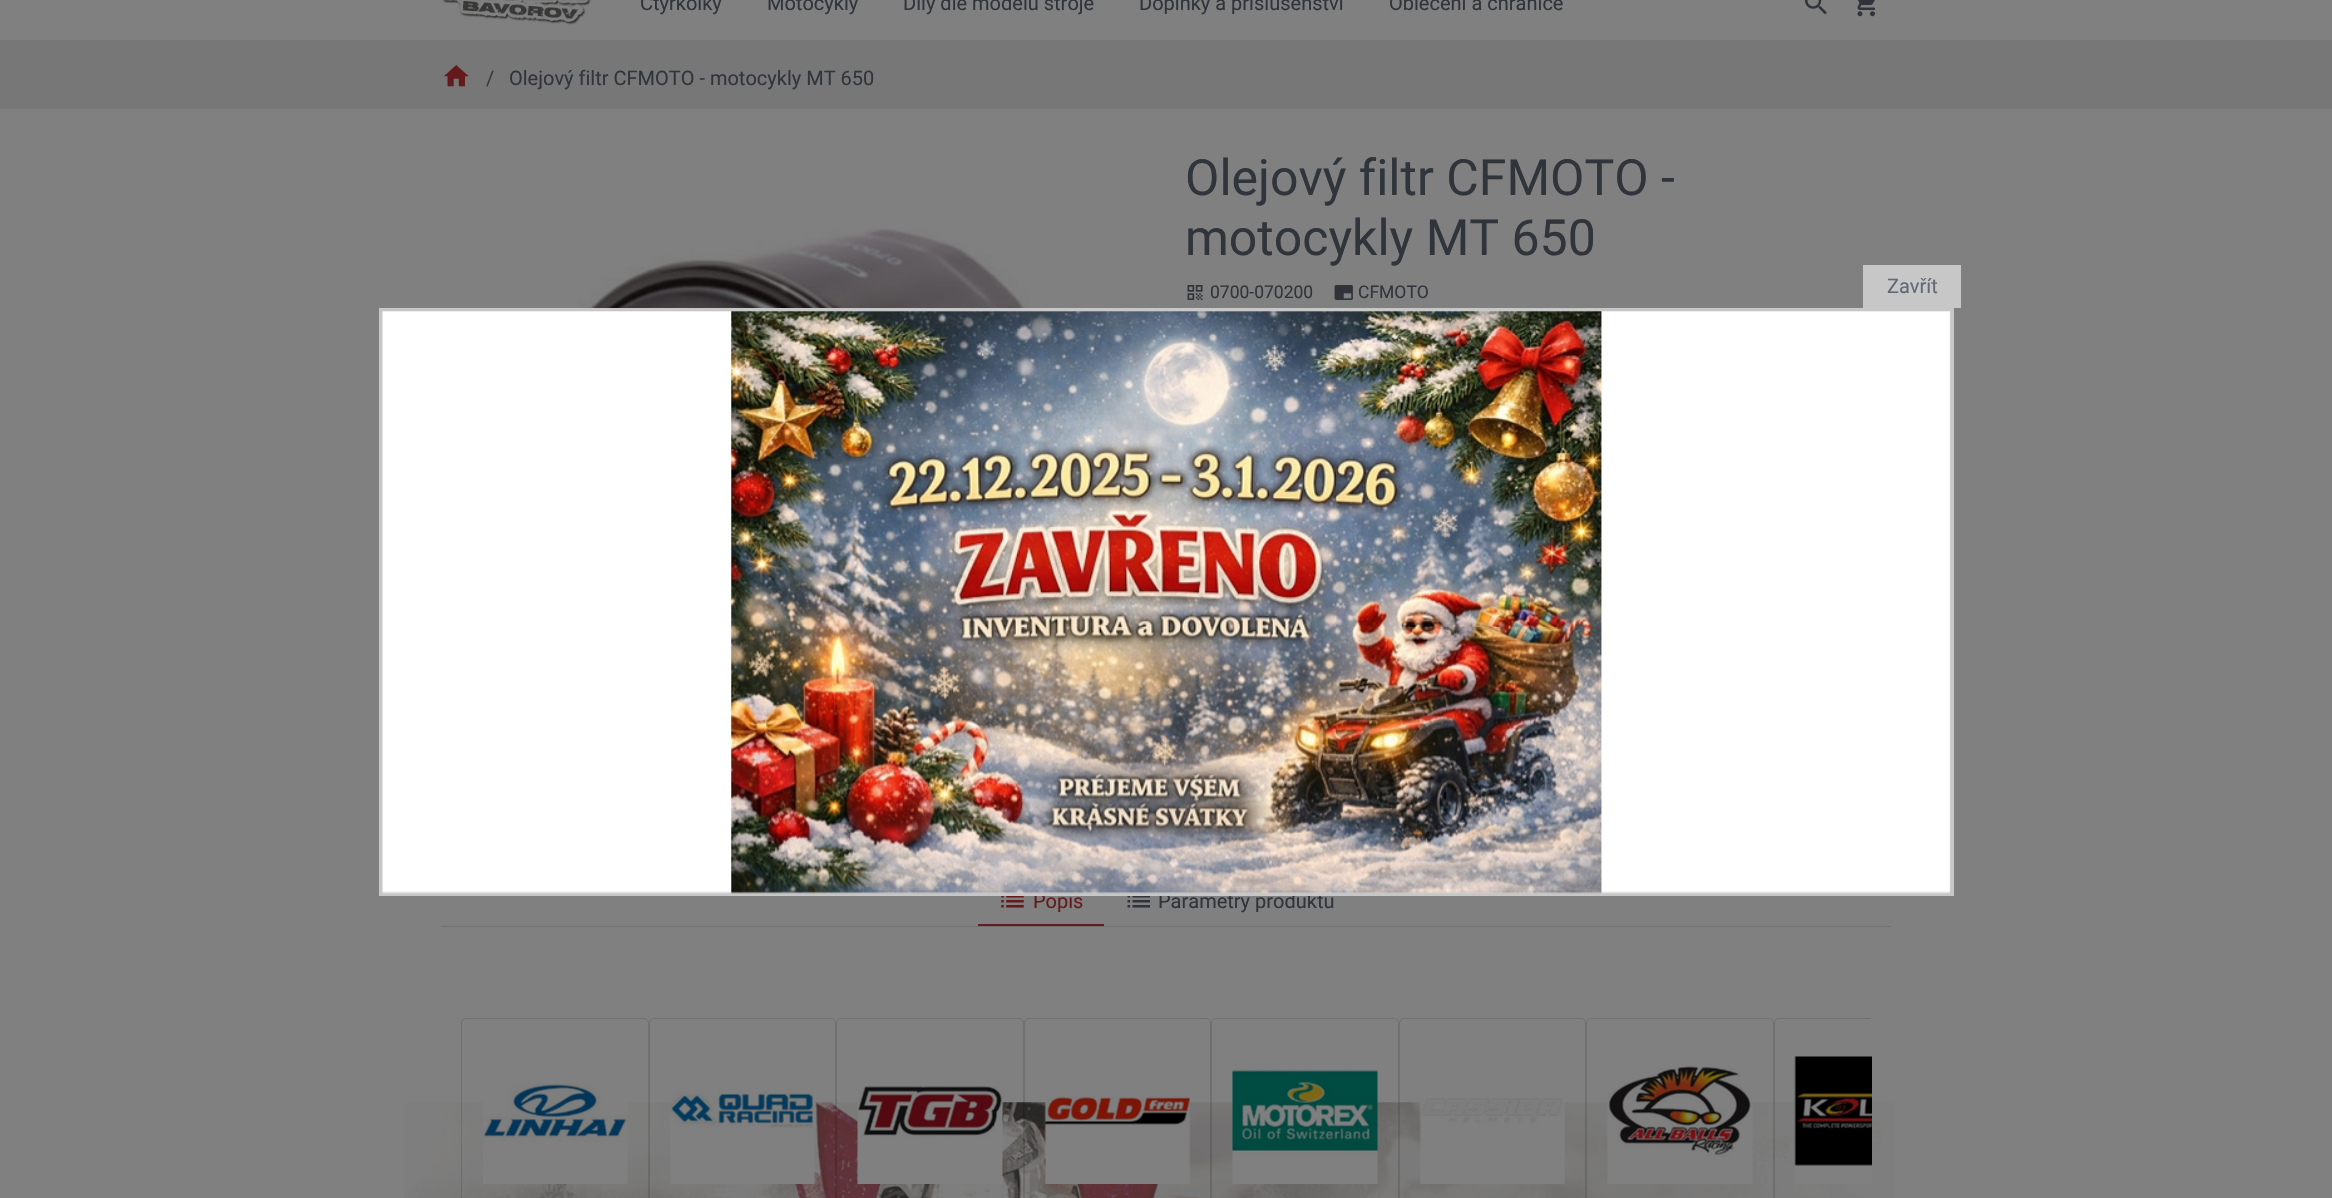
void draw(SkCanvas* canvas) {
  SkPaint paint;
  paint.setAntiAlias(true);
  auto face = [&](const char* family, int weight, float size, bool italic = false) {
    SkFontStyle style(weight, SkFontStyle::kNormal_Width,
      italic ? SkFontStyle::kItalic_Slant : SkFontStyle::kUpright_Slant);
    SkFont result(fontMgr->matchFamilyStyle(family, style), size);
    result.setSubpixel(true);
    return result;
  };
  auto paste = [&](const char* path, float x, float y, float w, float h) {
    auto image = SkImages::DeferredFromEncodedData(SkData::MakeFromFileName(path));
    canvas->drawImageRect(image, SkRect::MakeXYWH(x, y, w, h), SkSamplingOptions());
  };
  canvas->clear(0xff808080);
  paste("img/1.png", 442, 0, 149, 25);
  paste("img/2.png", 1805, 0, 22, 15);
  paste("img/3.png", 1857, 0, 18, 17);
  paint.setColor(0xff777777);
  canvas->drawRect(SkRect::MakeXYWH(0, 40, 2332, 69), paint);
  paste("img/4.png", 443, 65, 26, 22);
  paste("img/5.png", 404, 1102, 1490, 96);
  paste("img/6.png", 533, 228, 540, 80);
  paste("img/7.png", 1187, 285, 16, 15);
  paste("img/8.png", 1334, 285, 19, 15);
  paint.setColor(0xff6f7173);
  canvas->drawRect(SkRect::MakeXYWH(441, 926, 1450, 1), paint);
  paint.setColor(0xff651b1b);
  canvas->drawRect(SkRect::MakeXYWH(978, 924, 126, 2), paint);
  paste("img/9.png", 1001, 896, 23, 12);
  paste("img/10.png", 1127, 896, 23, 12);
  paint.setStroke(true);
  paint.setStrokeWidth(1);
  paint.setColor(0x1f000000);
  canvas->drawRoundRect(SkRect::MakeXYWH(461.5f, 1018.5f, 187, 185), 4.5f, 4.5f, paint);
  paste("img/11.png", 483, 1083, 145, 101);
  canvas->drawRoundRect(SkRect::MakeXYWH(649.5f, 1018.5f, 186, 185), 4.5f, 4.5f, paint);
  paste("img/12.png", 670, 1090, 146, 94);
  canvas->drawRoundRect(SkRect::MakeXYWH(836.5f, 1018.5f, 187, 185), 4.5f, 4.5f, paint);
  paste("img/13.png", 857, 1086, 146, 98);
  canvas->drawRoundRect(SkRect::MakeXYWH(1024.5f, 1018.5f, 186, 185), 4.5f, 4.5f, paint);
  paste("img/14.png", 1044, 1096, 147, 88);
  canvas->drawRoundRect(SkRect::MakeXYWH(1211.5f, 1018.5f, 187, 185), 4.5f, 4.5f, paint);
  paste("img/15.png", 1232, 1069, 146, 115);
  canvas->drawRoundRect(SkRect::MakeXYWH(1399.5f, 1018.5f, 186, 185), 4.5f, 4.5f, paint);
  paste("img/16.png", 1419, 1098, 146, 86);
  canvas->drawRoundRect(SkRect::MakeXYWH(1586.5f, 1018.5f, 187, 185), 4.5f, 4.5f, paint);
  paste("img/17.png", 1607, 1066, 146, 118);
  canvas->save();
  canvas->clipRect(SkRect::MakeXYWH(461, 1018, 1410, 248));
  canvas->drawRoundRect(SkRect::MakeXYWH(1774.5f, 1018.5f, 186, 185), 4.5f, 4.5f, paint);
  canvas->restore();
  paste("img/18.png", 1794, 1056, 78, 128);
  paint.setStroke(false);
  paint.setColor(0xffc7c7c7);
  canvas->drawRect(SkRect::MakeXYWH(1863, 265, 98, 43), paint);
  auto f0 = face("Roboto", 400, 20);
  paint.setColor(0xff30353b);
  {
    const struct { const char* s; float x, y; } items[] = {
      {"Čtyřkolky", 640, 10},
      {"Motocykly", 767, 10},
      {"Díly dle modelu stroje", 903, 10},
      {"Doplňky a příslušenství", 1139, 10},
      {"Oblečení a chrániče", 1389, 10},
    };
    for (auto [s, x, y] : items) {
      canvas->drawString(s, x, y, f0, paint);
    }
  }
  paint.setColor(0xff363b3f);
  canvas->drawString("/", 486, 85, f0, paint);
  paint.setColor(0xff30353b);
  canvas->drawString("Olejový filtr CFMOTO - motocykly MT 650", 509, 85, f0, paint);
  auto f1 = face("Roboto", 400, 50);
  canvas->drawString("Olejový filtr CFMOTO -", 1185, 195, f1, paint);
  canvas->drawString("motocykly MT 650", 1185, 255, f1, paint);
  auto f2 = face("Roboto", 400, 17.5f);
  canvas->drawString("0700-070200", 1210, 298, f2, paint);
  canvas->drawString("CFMOTO", 1358, 298, f2, paint);
  paint.setColor(0xff651b1b);
  canvas->drawString("Popis", 1033, 908, f0, paint);
  paint.setColor(0xff30353b);
  canvas->drawString("Parametry produktu", 1158, 908, f0, paint);
  paint.setColor(0xff606975);
  canvas->drawString("Zavřít", 1887, 293, f0, paint);
  paint.setStroke(true);
  paint.setStrokeWidth(4);
  paint.setColor(0xffc7c7c7);
  canvas->drawRect(SkRect::MakeXYWH(381, 310, 1571, 584), paint);
  paste("img/19.png", 382, 311, 1569, 583);
}
